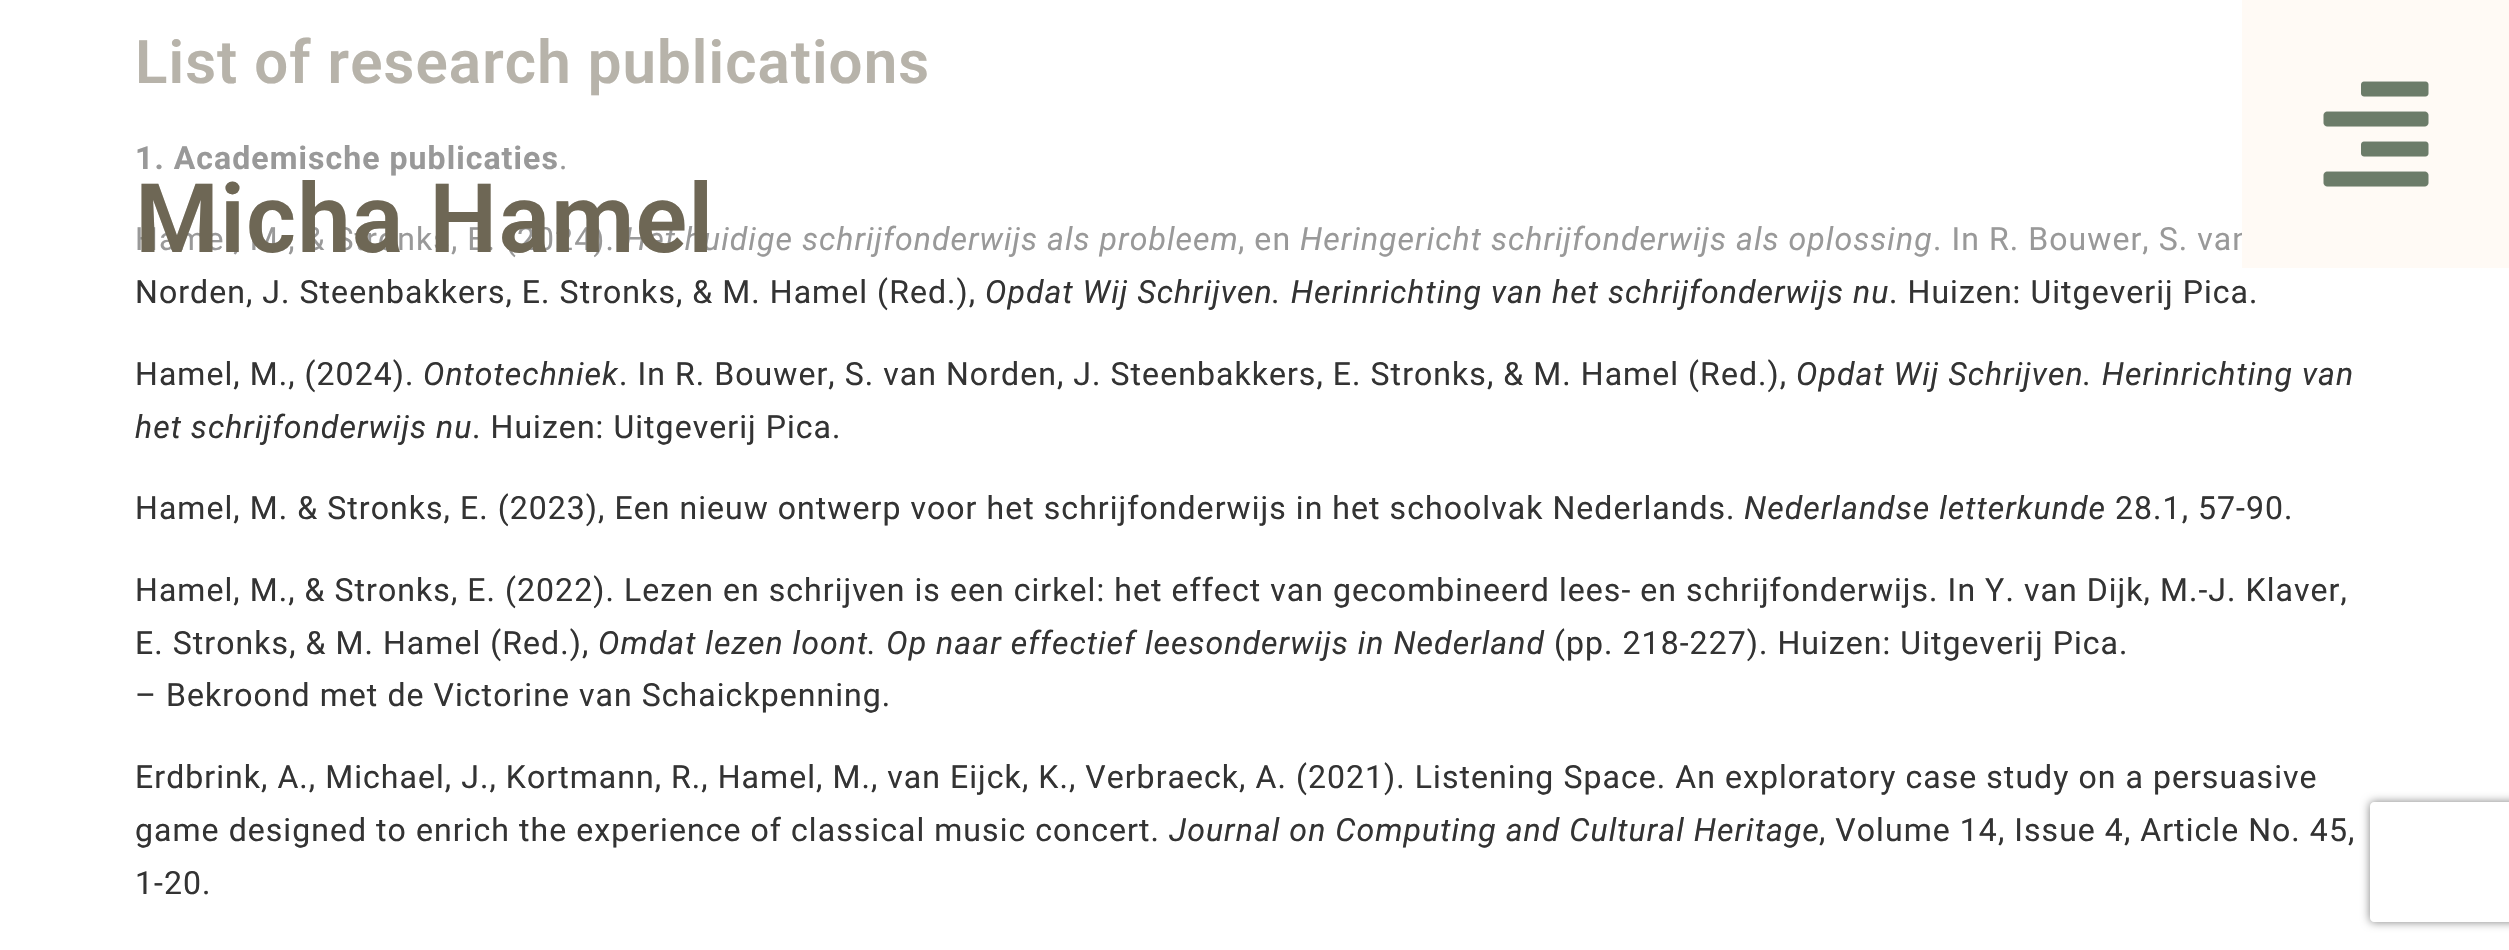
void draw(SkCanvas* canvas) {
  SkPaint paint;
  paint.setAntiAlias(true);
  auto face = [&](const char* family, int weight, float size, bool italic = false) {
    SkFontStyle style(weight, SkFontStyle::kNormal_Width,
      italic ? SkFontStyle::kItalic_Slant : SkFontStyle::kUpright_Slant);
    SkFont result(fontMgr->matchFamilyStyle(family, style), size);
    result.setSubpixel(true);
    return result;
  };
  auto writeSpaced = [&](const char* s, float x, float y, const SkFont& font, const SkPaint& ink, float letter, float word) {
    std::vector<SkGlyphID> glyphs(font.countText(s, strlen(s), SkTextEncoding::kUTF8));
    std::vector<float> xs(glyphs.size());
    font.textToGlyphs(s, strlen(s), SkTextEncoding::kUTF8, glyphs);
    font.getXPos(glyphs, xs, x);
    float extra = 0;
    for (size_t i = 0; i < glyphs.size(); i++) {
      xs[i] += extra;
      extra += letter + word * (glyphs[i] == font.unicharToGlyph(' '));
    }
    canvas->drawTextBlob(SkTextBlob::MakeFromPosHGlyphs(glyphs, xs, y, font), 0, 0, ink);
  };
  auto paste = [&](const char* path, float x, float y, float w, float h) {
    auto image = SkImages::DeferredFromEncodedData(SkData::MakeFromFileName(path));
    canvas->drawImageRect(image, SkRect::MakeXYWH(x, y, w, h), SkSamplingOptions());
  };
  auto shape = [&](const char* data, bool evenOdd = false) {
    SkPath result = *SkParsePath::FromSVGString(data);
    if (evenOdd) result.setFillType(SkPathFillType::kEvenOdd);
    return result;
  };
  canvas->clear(0xffffffff);
  canvas->save();
  canvas->clipPath(shape("M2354 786H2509V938H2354ZM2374 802H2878C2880 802 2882 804 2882 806V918C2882 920 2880 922 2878 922H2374C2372 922 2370 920 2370 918V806C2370 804 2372 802 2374 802Z", true), true);
  paint.setColor(0xff808080);
  paint.setMaskFilter(SkMaskFilter::MakeBlur(kNormal_SkBlurStyle, 5));
  canvas->drawRoundRect(SkRect::MakeXYWH(2370, 802, 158, 120), 4, 4, paint);
  paint.setMaskFilter(nullptr);
  canvas->restore();
  auto f0 = face("Roboto", 600, 60);
  paint.setColor(0xffb7b3aa);
  writeSpaced("List of research publications", 135, 83, f0, paint, 1.06f, 0);
  auto f1 = face("Roboto", 700, 32);
  paint.setColor(0xff999999);
  writeSpaced("1. Academische publicaties", 135, 169, f1, paint, 1.06f, 0);
  auto f2 = face("Roboto", 400, 32);
  writeSpaced(".", 559, 169, f2, paint, 1.06f, 0);
  writeSpaced("Hamel, M., & Stronks, E. (2024).", 135, 250, f2, paint, 1.06f, 0);
  auto f3 = face("Roboto", 400, 32, true);
  writeSpaced("Het huidige schrijfonderwijs als probleem", 624, 250, f3, paint, 1.06f, 0);
  writeSpaced(", en", 1238, 250, f2, paint, 1.06f, 0);
  writeSpaced("Heringericht schrijfonderwijs als oplossing", 1300, 250, f3, paint, 1.06f, 0);
  writeSpaced(". In R. Bouwer, S. van", 1933, 250, f2, paint, 1.06f, 0);
  paint.setColor(0xff333333);
  writeSpaced("Norden, J. Steenbakkers, E. Stronks, & M. Hamel (Red.),", 135, 303, f2, paint, 1.06f, 0);
  writeSpaced("Opdat Wij Schrijven. Herinrichting van het schrijfonderwijs nu", 985, 303, f3, paint, 1.06f, 0);
  writeSpaced(". Huizen: Uitgeverij Pica.", 1889, 303, f2, paint, 1.06f, 0);
  writeSpaced("Hamel, M., (2024).", 135, 385, f2, paint, 1.06f, 0);
  writeSpaced("Ontotechniek", 423, 385, f3, paint, 1.06f, 0);
  writeSpaced(". In R. Bouwer, S. van Norden, J. Steenbakkers, E. Stronks, & M. Hamel (Red.),", 619, 385, f2, paint, 1.06f, 0);
  writeSpaced("Opdat Wij Schrijven. Herinrichting van", 1796, 385, f3, paint, 1.06f, 0);
  writeSpaced("het schrijfonderwijs nu", 135, 438, f3, paint, 1.06f, 0);
  writeSpaced(". Huizen: Uitgeverij Pica.", 472, 438, f2, paint, 1.06f, 0);
  writeSpaced("Hamel, M. & Stronks, E. (2023), Een nieuw ontwerp voor het schrijfonderwijs in het schoolvak Nederlands.", 135, 519, f2, paint, 1.06f, 0);
  writeSpaced("Nederlandse letterkunde", 1744, 519, f3, paint, 1.06f, 0);
  {
    const struct { const char* s; float x, y; } items[] = {
      {"28.1, 57-90.", 2115, 519},
      {"Hamel, M., & Stronks, E. (2022). Lezen en schrijven is een cirkel: het effect van gecombineerd lees- en schrijfonderwijs. In Y. van Dijk, M.-J. Klaver,", 135, 601},
      {"E. Stronks, & M. Hamel (Red.),", 135, 654},
    };
    for (auto [s, x, y] : items) {
      writeSpaced(s, x, y, f2, paint, 1.06f, 0);
    }
  }
  writeSpaced("Omdat lezen loont. Op naar effectief leesonderwijs in Nederland", 598, 654, f3, paint, 1.06f, 0);
  {
    const struct { const char* s; float x, y; } items[] = {
      {"(pp. 218-227). Huizen: Uitgeverij Pica.", 1554, 654},
      {"– Bekroond met de Victorine van Schaickpenning.", 135, 706},
      {"Erdbrink, A., Michael, J., Kortmann, R., Hamel, M., van Eijck, K., Verbraeck, A. (2021). Listening Space. An exploratory case study on a persuasive", 135, 788},
      {"game designed to enrich the experience of classical music concert.", 135, 841},
    };
    for (auto [s, x, y] : items) {
      writeSpaced(s, x, y, f2, paint, 1.06f, 0);
    }
  }
  writeSpaced("Journal on Computing and Cultural Heritage", 1169, 841, f3, paint, 1.06f, 0);
  writeSpaced(", Volume 14, Issue 4, Article No. 45,", 1819, 841, f2, paint, 1.06f, 0);
  writeSpaced("1-20.", 135, 894, f2, paint, 1.06f, 0);
  auto f4 = face("Roboto", 600, 96);
  paint.setColor(0xff6e6755);
  writeSpaced("Micha Hamel", 135, 252, f4, paint, 1.06f, 0);
  paint.setColor(0xfffffaf5);
  canvas->drawRect(SkRect::MakeXYWH(2242, 0, 267, 268), paint);
  paste("img/1.png", 2323, 81, 106, 106);
}
